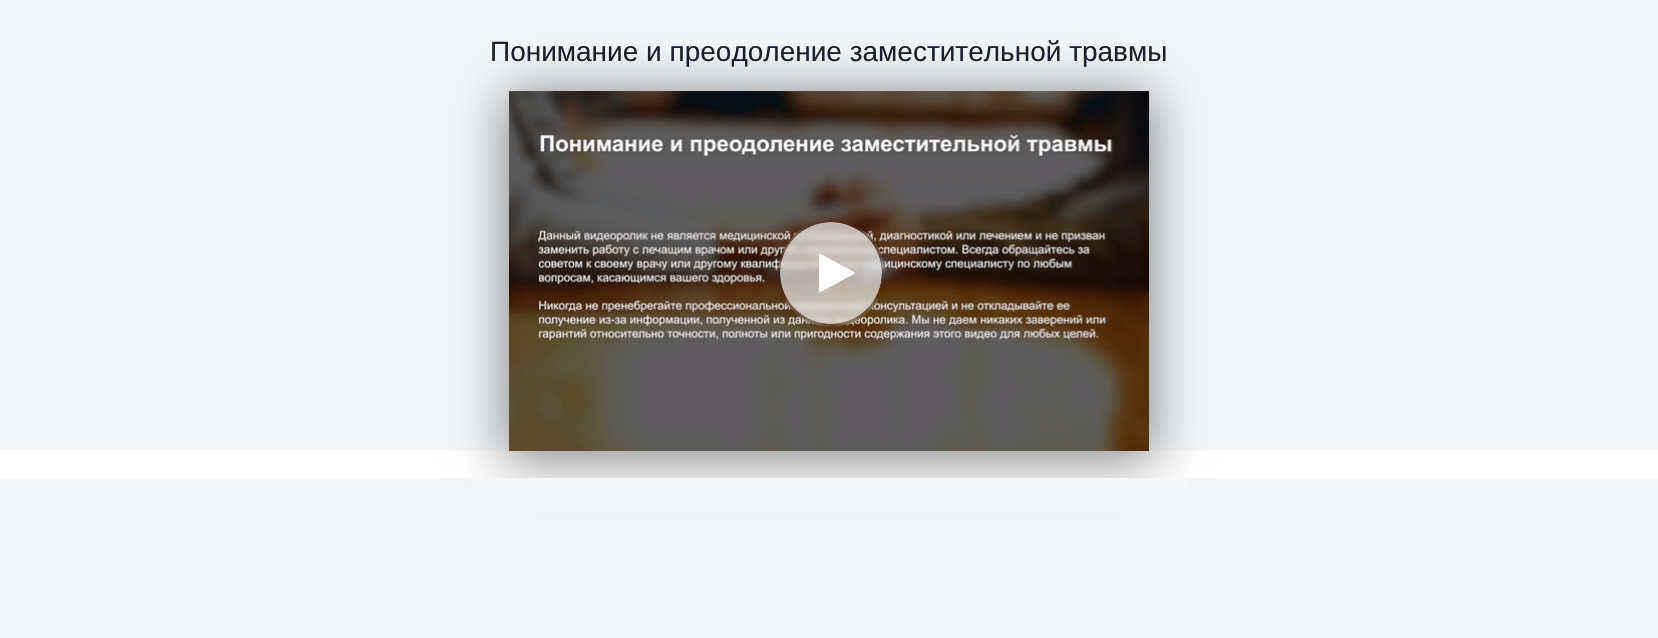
void draw(SkCanvas* canvas) {
  SkPaint paint;
  paint.setAntiAlias(true);
  auto face = [&](const char* family, int weight, float size, bool italic = false) {
    SkFontStyle style(weight, SkFontStyle::kNormal_Width,
      italic ? SkFontStyle::kItalic_Slant : SkFontStyle::kUpright_Slant);
    SkFont result(fontMgr->matchFamilyStyle(family, style), size);
    result.setSubpixel(true);
    return result;
  };
  auto paste = [&](const char* path, float x, float y, float w, float h) {
    auto image = SkImages::DeferredFromEncodedData(SkData::MakeFromFileName(path));
    canvas->drawImageRect(image, SkRect::MakeXYWH(x, y, w, h), SkSamplingOptions());
  };
  auto shape = [&](const char* data, bool evenOdd = false) {
    SkPath result = *SkParsePath::FromSVGString(data);
    if (evenOdd) result.setFillType(SkPathFillType::kEvenOdd);
    return result;
  };
  canvas->clear(0xfff5f8fa);
  paint.setColor(0xffffffff);
  canvas->drawRect(SkRect::MakeXYWH(0, 451, 1658, 27), paint);
  canvas->save();
  canvas->clipPath(shape("M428 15H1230V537H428ZM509 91H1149V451H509Z", true), true);
  paint.setColor(0xff888888);
  paint.setMaskFilter(SkMaskFilter::MakeBlur(kNormal_SkBlurStyle, 25));
  canvas->drawRect(SkRect::MakeXYWH(504, 91, 650, 370), paint);
  paint.setMaskFilter(nullptr);
  canvas->restore();
  paste("img/1.png", 509, 91, 640, 360);
  paint.setColor(0xfff5f8fa);
  canvas->drawRect(SkRect::MakeXYWH(471, 478, 716, 33), paint);
  auto f0 = face("Liberation Sans", 400, 28);
  paint.setColor(0xff1a202c);
  canvas->drawString("Понимание и преодоление заместительной травмы", 490, 61, f0, paint);
}
